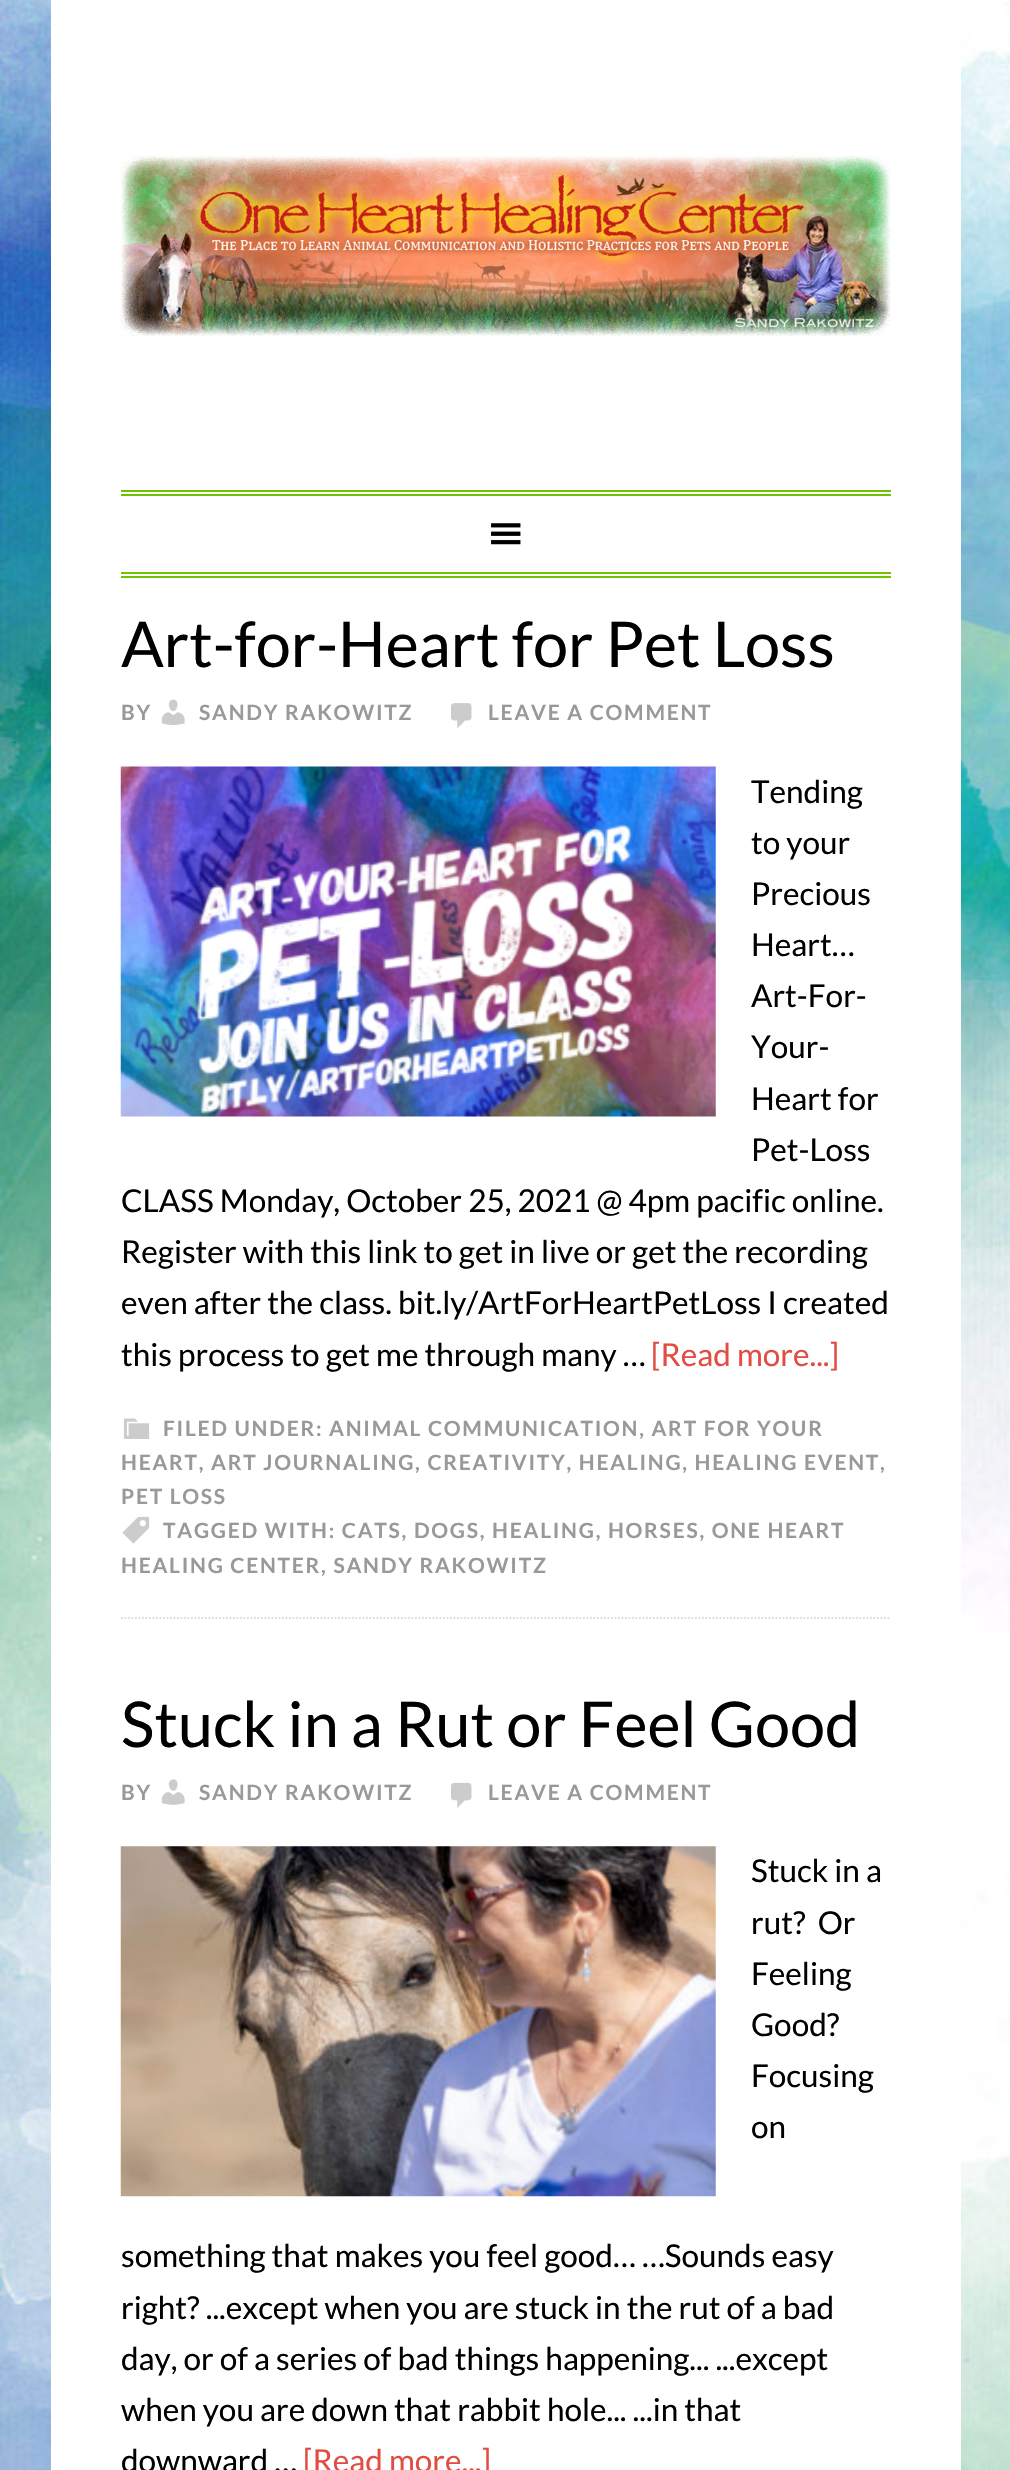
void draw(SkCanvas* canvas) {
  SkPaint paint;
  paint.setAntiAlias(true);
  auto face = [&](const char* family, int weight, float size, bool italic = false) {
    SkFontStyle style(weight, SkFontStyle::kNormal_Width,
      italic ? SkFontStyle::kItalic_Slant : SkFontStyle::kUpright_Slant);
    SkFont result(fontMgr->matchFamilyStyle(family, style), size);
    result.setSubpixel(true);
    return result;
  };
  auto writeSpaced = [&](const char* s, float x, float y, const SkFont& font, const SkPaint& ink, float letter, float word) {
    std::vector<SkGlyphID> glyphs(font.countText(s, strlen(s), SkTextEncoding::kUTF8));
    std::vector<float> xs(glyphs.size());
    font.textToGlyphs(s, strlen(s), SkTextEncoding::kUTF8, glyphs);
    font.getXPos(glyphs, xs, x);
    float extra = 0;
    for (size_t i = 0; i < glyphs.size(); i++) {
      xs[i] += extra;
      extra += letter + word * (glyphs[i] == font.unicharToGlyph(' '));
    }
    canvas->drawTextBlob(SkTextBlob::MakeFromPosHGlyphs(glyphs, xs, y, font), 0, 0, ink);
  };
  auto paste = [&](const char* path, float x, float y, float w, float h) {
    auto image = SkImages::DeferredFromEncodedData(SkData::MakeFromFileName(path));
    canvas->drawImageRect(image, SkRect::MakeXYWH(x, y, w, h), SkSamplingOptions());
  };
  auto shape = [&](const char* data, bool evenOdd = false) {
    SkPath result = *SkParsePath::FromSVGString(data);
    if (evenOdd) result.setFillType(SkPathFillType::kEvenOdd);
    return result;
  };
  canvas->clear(0xffffffff);
  paste("img/1.png", 0, 0, 1010, 2470);
  paint.setColor(0xffffffff);
  canvas->drawRect(SkRect::MakeXYWH(51, 0, 910, 2470), paint);
  paste("img/2.png", 120, 155, 771, 181);
  {
    const struct { float x, y, w, h; SkColor color; } items[] = {
      {121, 490, 770, 2, 0xff70c303},
      {121, 494, 770, 2, 0xff70c303},
      {121, 572, 770, 2, 0xff70c303},
      {121, 576, 770, 2, 0xff70c303},
    };
    for (auto [x, y, w, h, color] : items) {
      paint.setColor(color);
      canvas->drawRect(SkRect::MakeXYWH(x, y, w, h), paint);
    }
  }
  paste("img/3.png", 491, 523, 30, 22);
  paint.setStroke(true);
  paint.setStrokeWidth(1.8f);
  paint.setColor(0xffdddddd);
  paint.setPathEffect(SkDashPathEffect::Make({{1.75f, 1.75f}}, 0));
  canvas->drawPath(shape("M121 1618H891"), paint);
  paint.setPathEffect(nullptr);
  paste("img/4.png", 161, 699, 24, 27);
  paste("img/5.png", 451, 703, 21, 25);
  paste("img/6.png", 120, 766, 596, 351);
  paste("img/7.png", 123, 1418, 27, 21);
  paste("img/8.png", 122, 1516, 28, 28);
  paste("img/9.png", 161, 1779, 24, 26);
  paste("img/10.png", 451, 1782, 21, 26);
  paste("img/11.png", 120, 1846, 596, 351);
  auto f0 = face("Lato", 400, 63);
  paint.setStroke(false);
  paint.setColor(0xff000000);
  canvas->drawString("Art-for-Heart for Pet Loss", 121, 667, f0, paint);
  auto f1 = face("Lato", 700, 21);
  paint.setColor(0xff999999);
  {
    const struct { const char* s; float x, y; } items[] = {
      {"BY", 121, 720},
      {"SANDY RAKOWITZ", 199, 720},
      {"LEAVE A COMMENT", 488, 720},
    };
    for (auto [s, x, y] : items) {
      writeSpaced(s, x, y, f1, paint, 1.75f, 0);
    }
  }
  auto f2 = face("Lato", 400, 31.5f);
  paint.setColor(0xff000000);
  {
    const struct { const char* s; float x, y; } items[] = {
      {"Tending", 751, 803},
      {"to your", 751, 854},
      {"Precious", 751, 905},
      {"Heart…", 751, 956},
      {"Art-For-", 751, 1007},
      {"Your-", 751, 1058},
      {"Heart for", 751, 1110},
      {"Pet-Loss", 751, 1161},
      {"CLASS Monday, October 25, 2021 @ 4pm pacific online.", 121, 1212},
      {"Register with this link to get in live or get the recording", 121, 1263},
      {"even after the class. bit.ly/ArtForHeartPetLoss I created", 121, 1314},
      {"this process to get me through many …", 121, 1366},
    };
    for (auto [s, x, y] : items) {
      canvas->drawString(s, x, y, f2, paint);
    }
  }
  paint.setColor(0xffe14d43);
  canvas->drawString("[Read more...]", 651, 1366, f2, paint);
  paint.setColor(0xff999999);
  {
    const struct { const char* s; float x, y; } items[] = {
      {"FILED UNDER: ANIMAL COMMUNICATION, ART FOR YOUR", 163, 1436},
      {"HEART, ART JOURNALING, CREATIVITY, HEALING, HEALING EVENT,", 121, 1470},
      {"PET LOSS", 121, 1504},
      {"TAGGED WITH: CATS, DOGS, HEALING, HORSES, ONE HEART", 163, 1538},
      {"HEALING CENTER, SANDY RAKOWITZ", 121, 1573},
    };
    for (auto [s, x, y] : items) {
      writeSpaced(s, x, y, f1, paint, 1.75f, 0);
    }
  }
  paint.setColor(0xff000000);
  canvas->drawString("Stuck in a Rut or Feel Good", 121, 1747, f0, paint);
  paint.setColor(0xff999999);
  {
    const struct { const char* s; float x, y; } items[] = {
      {"BY", 121, 1800},
      {"SANDY RAKOWITZ", 199, 1800},
      {"LEAVE A COMMENT", 488, 1800},
    };
    for (auto [s, x, y] : items) {
      writeSpaced(s, x, y, f1, paint, 1.75f, 0);
    }
  }
  paint.setColor(0xff000000);
  {
    const struct { const char* s; float x, y; } items[] = {
      {"Stuck in a", 751, 1882},
      {"rut?  Or", 751, 1934},
      {"Feeling", 751, 1985},
      {"Good?", 751, 2036},
      {"Focusing", 751, 2087},
      {"on", 751, 2138},
      {"something that makes you feel good… …Sounds easy", 121, 2267},
      {"right? ...except when you are stuck in the rut of a bad", 121, 2319},
      {"day, or of a series of bad things happening... ...except", 121, 2370},
      {"when you are down that rabbit hole... ...in that", 121, 2421},
      {"downward …", 121, 2472},
    };
    for (auto [s, x, y] : items) {
      canvas->drawString(s, x, y, f2, paint);
    }
  }
  paint.setColor(0xffe14d43);
  canvas->drawString("[Read more...]", 303, 2472, f2, paint);
}
